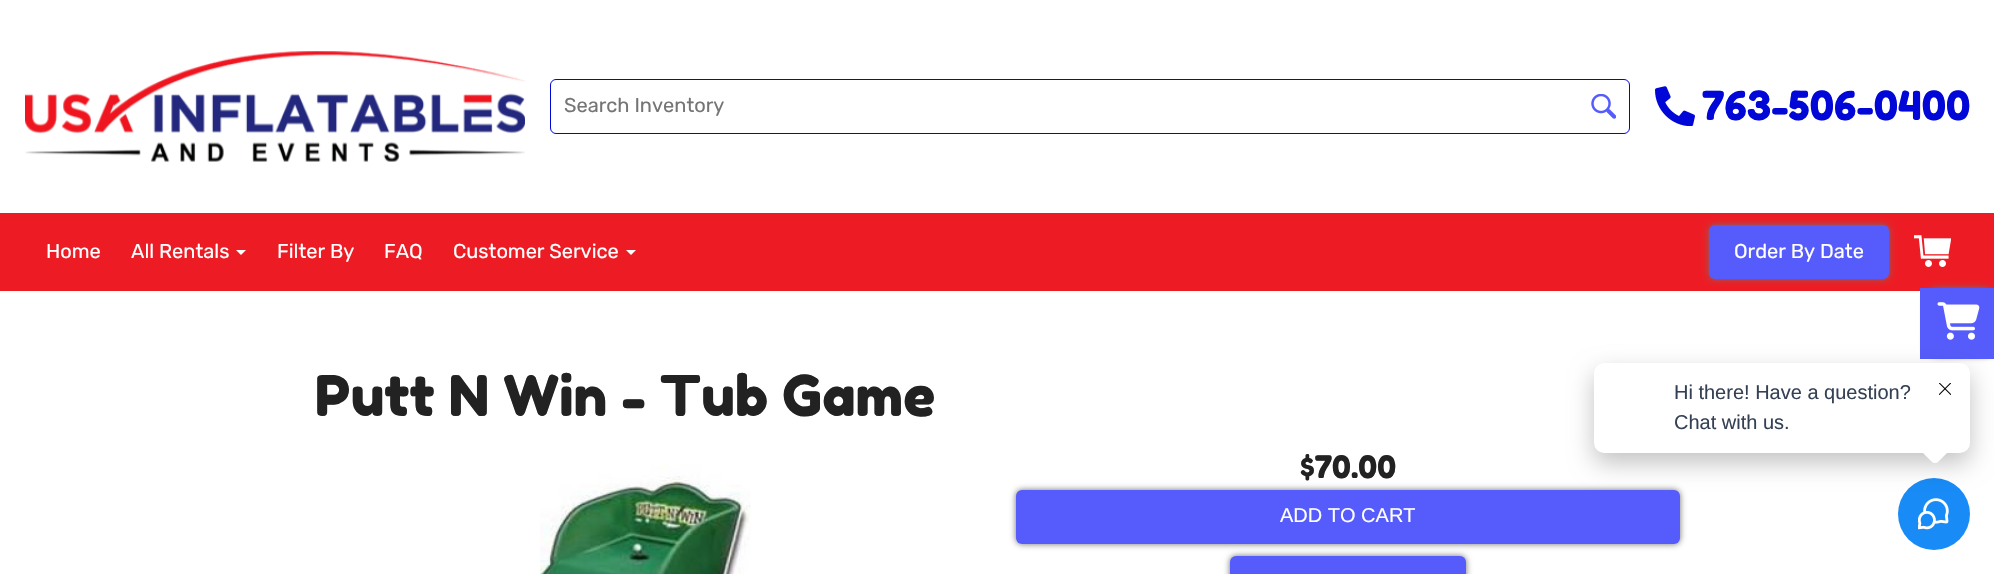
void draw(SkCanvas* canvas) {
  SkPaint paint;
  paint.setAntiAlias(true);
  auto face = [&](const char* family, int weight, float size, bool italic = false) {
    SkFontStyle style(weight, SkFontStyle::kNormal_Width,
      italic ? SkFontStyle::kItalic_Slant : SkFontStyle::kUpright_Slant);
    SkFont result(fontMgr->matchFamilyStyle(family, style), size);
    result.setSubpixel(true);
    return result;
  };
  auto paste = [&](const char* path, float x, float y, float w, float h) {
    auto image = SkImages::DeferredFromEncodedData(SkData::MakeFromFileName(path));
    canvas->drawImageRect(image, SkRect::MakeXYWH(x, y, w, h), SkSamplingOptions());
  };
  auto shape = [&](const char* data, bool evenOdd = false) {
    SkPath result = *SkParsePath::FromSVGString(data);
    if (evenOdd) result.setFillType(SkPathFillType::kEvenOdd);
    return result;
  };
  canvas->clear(0xffffffff);
  paste("img/1.png", 25, 51, 500, 111);
  paint.setStroke(true);
  paint.setStrokeWidth(1);
  paint.setColor(0xff0007d6);
  canvas->drawRoundRect(SkRect::MakeXYWH(550.5f, 79.5f, 1079, 54), 5.5f, 5.5f, paint);
  paste("img/2.png", 1591, 94, 25, 25);
  paste("img/3.png", 1655, 86, 40, 40);
  paint.setStroke(false);
  paint.setColor(0xffed1c24);
  canvas->drawRect(SkRect::MakeXYWH(0, 213, 1994, 78), paint);
  paint.setColor(0xffffffff);
  canvas->drawPath(shape("M236 250H246L241 255Z"), paint);
  canvas->drawPath(shape("M626 250H636L631 255Z"), paint);
  paint.setColor(0xff707070);
  paint.setMaskFilter(SkMaskFilter::MakeBlur(kNormal_SkBlurStyle, 3));
  canvas->drawRoundRect(SkRect::MakeXYWH(1709, 225, 180, 54), 6, 6, paint);
  paint.setMaskFilter(nullptr);
  paint.setColor(0xff555cfb);
  canvas->drawRoundRect(SkRect::MakeXYWH(1709, 225, 180, 54), 6, 6, paint);
  paste("img/4.png", 1914, 235, 37, 32);
  paste("img/5.png", 540, 465, 211, 109);
  paint.setColor(0xff707070);
  paint.setMaskFilter(SkMaskFilter::MakeBlur(kNormal_SkBlurStyle, 3));
  canvas->drawRoundRect(SkRect::MakeXYWH(1016, 490, 664, 54), 6, 6, paint);
  paint.setMaskFilter(nullptr);
  paint.setColor(0xff555cfb);
  canvas->drawRoundRect(SkRect::MakeXYWH(1016, 490, 664, 54), 6, 6, paint);
  paint.setColor(0xff707070);
  paint.setMaskFilter(SkMaskFilter::MakeBlur(kNormal_SkBlurStyle, 3));
  canvas->drawRoundRect(SkRect::MakeXYWH(1230, 556, 236, 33), 6, 6, paint);
  paint.setMaskFilter(nullptr);
  paint.setColor(0xff555cfb);
  canvas->drawRoundRect(SkRect::MakeXYWH(1230, 556, 236, 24), 6, 6, paint);
  paint.setColor(0xff188bf6);
  canvas->drawCircle(1934, 514, 36, paint);
  paste("img/7.png", 1918, 498, 31, 32);
  paint.setColor(0xff707070);
  paint.setMaskFilter(SkMaskFilter::MakeBlur(kNormal_SkBlurStyle, 3));
  canvas->drawRoundRect(SkRect::MakeXYWH(1926, 288, 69, 68), 13, 13, paint);
  paint.setMaskFilter(nullptr);
  paint.setColor(0xff555cfb);
  canvas->drawRect(SkRect::MakeXYWH(1920, 288, 74, 71), paint);
  paste("img/8.png", 1937, 302, 43, 38);
  paint.setColor(0x3d000000);
  paint.setMaskFilter(SkMaskFilter::MakeBlur(kNormal_SkBlurStyle, 12.5f));
  canvas->drawRoundRect(SkRect::MakeXYWH(1594, 373, 376, 90), 10, 10, paint);
  paint.setMaskFilter(nullptr);
  paint.setColor(0xffffffff);
  canvas->drawRoundRect(SkRect::MakeXYWH(1594, 363, 376, 90), 10, 10, paint);
  canvas->drawPath(shape("M1938.5 433.5L1949 444C1951 446 1951 449 1949 451L1938.5 461.5C1936.5 463.5 1933.5 463.5 1931.5 461.5L1921 451C1919 449 1919 446 1921 444L1931.5 433.5C1933.5 431.5 1936.5 431.5 1938.5 433.5Z"), paint);
  paste("img/6.png", 1939, 383, 12, 12);
  auto f0 = face("Rubik", 400, 20);
  paint.setColor(0xff757575);
  canvas->drawString("Search Inventory", 564, 112, f0, paint);
  auto f1 = face("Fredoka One", 400, 40);
  paint.setColor(0xff0007d6);
  canvas->drawString("763-506-0400", 1702, 120, f1, paint);
  paint.setColor(0xffffffff);
  {
    const struct { const char* s; float x, y; } items[] = {
      {"Home", 46, 258},
      {"All Rentals", 131, 258},
      {"Filter By", 277, 258},
      {"FAQ", 384, 258},
      {"Customer Service", 453, 258},
      {"Order By Date", 1734, 258},
    };
    for (auto [s, x, y] : items) {
      canvas->drawString(s, x, y, f0, paint);
    }
  }
  auto f2 = face("Fredoka One", 400, 56);
  paint.setColor(0xff222222);
  canvas->drawString("Putt N Win - Tub Game", 315, 416, f2, paint);
  auto f3 = face("Fredoka One", 400, 31);
  canvas->drawString("$70.00", 1300, 478, f3, paint);
  auto f4 = face("Liberation Sans", 400, 20);
  paint.setColor(0xffffffff);
  canvas->drawString("ADD TO CART", 1280, 522, f4, paint);
  paint.setColor(0xff344054);
  canvas->drawString("Hi there! Have a question?", 1674, 399, f4, paint);
  canvas->drawString("Chat with us.", 1674, 429, f4, paint);
}
